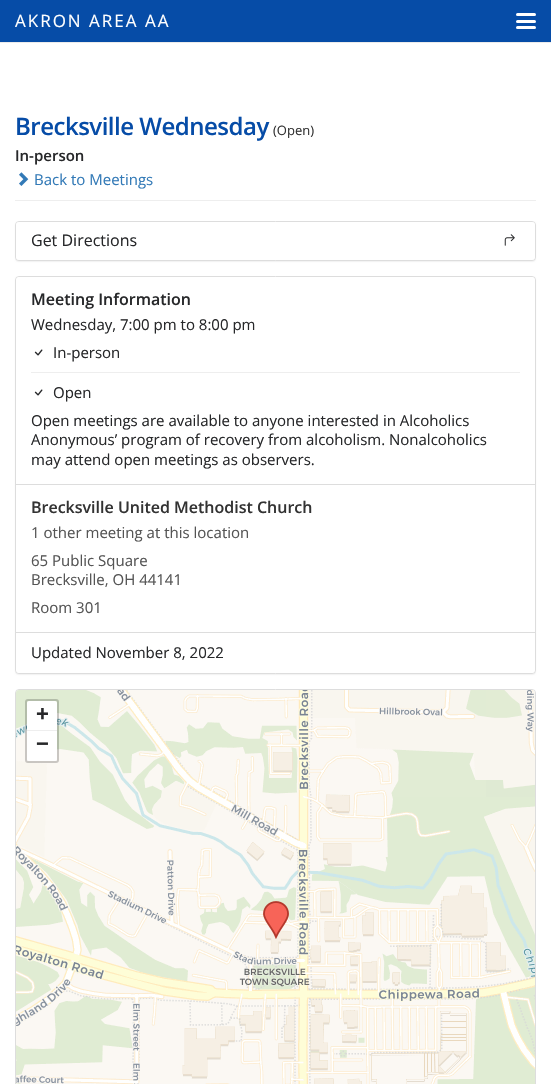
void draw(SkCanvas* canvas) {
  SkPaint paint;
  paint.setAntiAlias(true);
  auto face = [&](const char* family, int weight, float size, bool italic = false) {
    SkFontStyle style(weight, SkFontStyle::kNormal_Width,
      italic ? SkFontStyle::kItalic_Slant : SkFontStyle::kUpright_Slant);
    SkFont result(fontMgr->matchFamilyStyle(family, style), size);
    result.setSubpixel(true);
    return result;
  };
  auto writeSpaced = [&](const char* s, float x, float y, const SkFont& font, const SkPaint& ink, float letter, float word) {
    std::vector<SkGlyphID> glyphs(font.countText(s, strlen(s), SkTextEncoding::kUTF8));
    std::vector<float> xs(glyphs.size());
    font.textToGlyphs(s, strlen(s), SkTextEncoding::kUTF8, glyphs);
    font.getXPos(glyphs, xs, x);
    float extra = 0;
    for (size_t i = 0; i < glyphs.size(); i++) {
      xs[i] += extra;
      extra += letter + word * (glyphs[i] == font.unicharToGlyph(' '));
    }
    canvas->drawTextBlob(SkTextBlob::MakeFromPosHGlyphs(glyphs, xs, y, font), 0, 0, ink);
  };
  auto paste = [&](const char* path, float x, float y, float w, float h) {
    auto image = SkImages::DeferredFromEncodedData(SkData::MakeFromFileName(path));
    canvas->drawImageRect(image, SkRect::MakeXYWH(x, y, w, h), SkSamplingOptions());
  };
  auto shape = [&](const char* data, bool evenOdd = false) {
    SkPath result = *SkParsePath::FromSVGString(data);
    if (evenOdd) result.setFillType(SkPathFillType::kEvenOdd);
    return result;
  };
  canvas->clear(0xffffffff);
  paint.setColor(0xffebebeb);
  canvas->drawRect(SkRect::MakeXYWH(0, 42, 551, 1), paint);
  paint.setColor(0xff064ca7);
  canvas->drawRect(SkRect::MakeXYWH(0, 0, 551, 42), paint);
  paint.setColor(0xffffffff);
  canvas->drawRoundRect(SkRect::MakeXYWH(516, 20, 20, 3), 1.5f, 1.5f, paint);
  canvas->drawRoundRect(SkRect::MakeXYWH(516, 13, 20, 3), 1.5f, 1.5f, paint);
  canvas->drawRoundRect(SkRect::MakeXYWH(516, 26, 20, 3), 1.5f, 1.5f, paint);
  paint.setColor(0xffeeeeee);
  canvas->drawRect(SkRect::MakeXYWH(15, 200, 521, 1), paint);
  paste("img/1.png", 19, 172, 10, 14);
  paint.setColor(0x0d000000);
  paint.setMaskFilter(SkMaskFilter::MakeBlur(kNormal_SkBlurStyle, 0.5f));
  canvas->drawRoundRect(SkRect::MakeXYWH(15, 222, 521, 40), 4, 4, paint);
  paint.setMaskFilter(nullptr);
  paint.setStroke(true);
  paint.setStrokeWidth(1);
  paint.setColor(0xffdddddd);
  canvas->drawRoundRect(SkRect::MakeXYWH(15.5f, 221.5f, 520, 39), 3.5f, 3.5f, paint);
  paint.setStroke(false);
  paint.setColor(0xffffffff);
  canvas->drawRoundRect(SkRect::MakeXYWH(16, 222, 519, 38), 3, 3, paint);
  paste("img/2.png", 504, 234, 11, 12);
  paint.setColor(0x0d000000);
  paint.setMaskFilter(SkMaskFilter::MakeBlur(kNormal_SkBlurStyle, 0.5f));
  canvas->drawRoundRect(SkRect::MakeXYWH(15, 277, 521, 398), 4, 4, paint);
  paint.setMaskFilter(nullptr);
  paint.setColor(0xffffffff);
  canvas->drawRoundRect(SkRect::MakeXYWH(15.5f, 276.5f, 520, 397), 3.5f, 3.5f, paint);
  paint.setStroke(true);
  paint.setColor(0xffdddddd);
  canvas->drawRoundRect(SkRect::MakeXYWH(15.5f, 276.5f, 520, 397), 3.5f, 3.5f, paint);
  paint.setStroke(false);
  paint.setColor(0xffffffff);
  canvas->drawPath(shape("M19 277H532C533.5 277 535 278.5 535 280V485H16V280C16 278.5 17.5 277 19 277Z"), paint);
  paint.setColor(0xffdddddd);
  canvas->drawRect(SkRect::MakeXYWH(16, 484, 519, 1), paint);
  paste("img/3.png", 34, 349, 9, 7);
  paint.setColor(0xffeeeeee);
  canvas->drawRect(SkRect::MakeXYWH(31, 372, 489, 1), paint);
  paste("img/3.png", 34, 389, 9, 7);
  paint.setColor(0xffffffff);
  canvas->drawPath(shape("M16 632H535V670C535 671.5 533.5 673 532 673H19C17.5 673 16 671.5 16 670Z"), paint);
  paint.setColor(0xffdddddd);
  canvas->drawRect(SkRect::MakeXYWH(16, 632, 519, 1), paint);
  paint.setStroke(true);
  canvas->drawRoundRect(SkRect::MakeXYWH(15.5f, 689.5f, 520, 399), 3.5f, 3.5f, paint);
  paste("img/4.png", 16, 690, 214, 107);
  paste("img/5.png", 230, 690, 256, 107);
  paste("img/6.png", 486, 690, 49, 107);
  paste("img/7.png", 16, 797, 214, 256);
  paste("img/8.png", 230, 797, 256, 256);
  paste("img/9.png", 486, 797, 49, 256);
  paste("img/10.png", 16, 1053, 214, 31);
  paste("img/11.png", 230, 1053, 256, 31);
  paste("img/12.png", 486, 1053, 49, 31);
  paste("img/13.png", 263, 901, 26, 38);
  paint.setStrokeWidth(2);
  paint.setColor(0x33000000);
  canvas->drawRoundRect(SkRect::MakeXYWH(26, 700, 32, 62), 2, 2, paint);
  paint.setStroke(false);
  paint.setColor(0xffffffff);
  canvas->drawPath(shape("M29 701H55C56 701 57 702 57 703V731H27V703C27 702 28 701 29 701Z"), paint);
  paint.setColor(0xffeeeeee);
  canvas->drawRect(SkRect::MakeXYWH(27, 730, 30, 1), paint);
  paint.setColor(0xffffffff);
  canvas->drawPath(shape("M27 731H57V759C57 760 56 761 55 761H29C28 761 27 760 27 759Z"), paint);
  auto f0 = face("Open Sans", 400, 17);
  writeSpaced("AKRON AREA AA", 15, 27, f0, paint, 2, 0);
  auto f1 = face("Open Sans", 600, 24);
  paint.setColor(0xff064ca7);
  writeSpaced("Brecksville Wednesday", 15, 135, f1, paint, -0.5f, 0);
  auto f2 = face("Open Sans", 400, 13);
  paint.setColor(0xff333333);
  canvas->drawString("(Open)", 273, 135, f2, paint);
  auto f3 = face("Open Sans", 600, 15);
  paint.setColor(0xff27282a);
  canvas->drawString("In-person", 15, 161, f3, paint);
  auto f4 = face("Open Sans", 400, 15);
  paint.setColor(0xff337ab7);
  canvas->drawString("Back to Meetings", 34, 185, f4, paint);
  auto f5 = face("Open Sans", 400, 16);
  paint.setColor(0xff27282a);
  canvas->drawString("Get Directions", 31, 246, f5, paint);
  auto f6 = face("Open Sans", 600, 16);
  canvas->drawString("Meeting Information", 31, 305, f6, paint);
  {
    const struct { const char* s; float x, y; } items[] = {
      {"Wednesday, 7:00 pm to 8:00 pm", 31, 330},
      {"In-person", 53, 358},
      {"Open", 53, 398},
      {"Open meetings are available to anyone interested in Alcoholics", 31, 426},
      {"Anonymous’ program of recovery from alcoholism. Nonalcoholics", 31, 445},
      {"may attend open meetings as observers.", 31, 465},
    };
    for (auto [s, x, y] : items) {
      canvas->drawString(s, x, y, f4, paint);
    }
  }
  paint.setColor(0xff333333);
  canvas->drawString("Brecksville United Methodist Church", 31, 513, f6, paint);
  paint.setColor(0xff555555);
  {
    const struct { const char* s; float x, y; } items[] = {
      {"1 other meeting at this location", 31, 538},
      {"65 Public Square", 31, 566},
      {"Brecksville, OH 44141", 31, 585},
      {"Room 301", 31, 613},
    };
    for (auto [s, x, y] : items) {
      canvas->drawString(s, x, y, f4, paint);
    }
  }
  paint.setColor(0xff27282a);
  canvas->drawString("Updated November 8, 2022", 31, 658, f4, paint);
  auto f7 = face("Liberation Sans", 700, 22);
  canvas->drawString("+", 36, 721, f7, paint);
  canvas->drawString("−", 36, 751, f7, paint);
}
